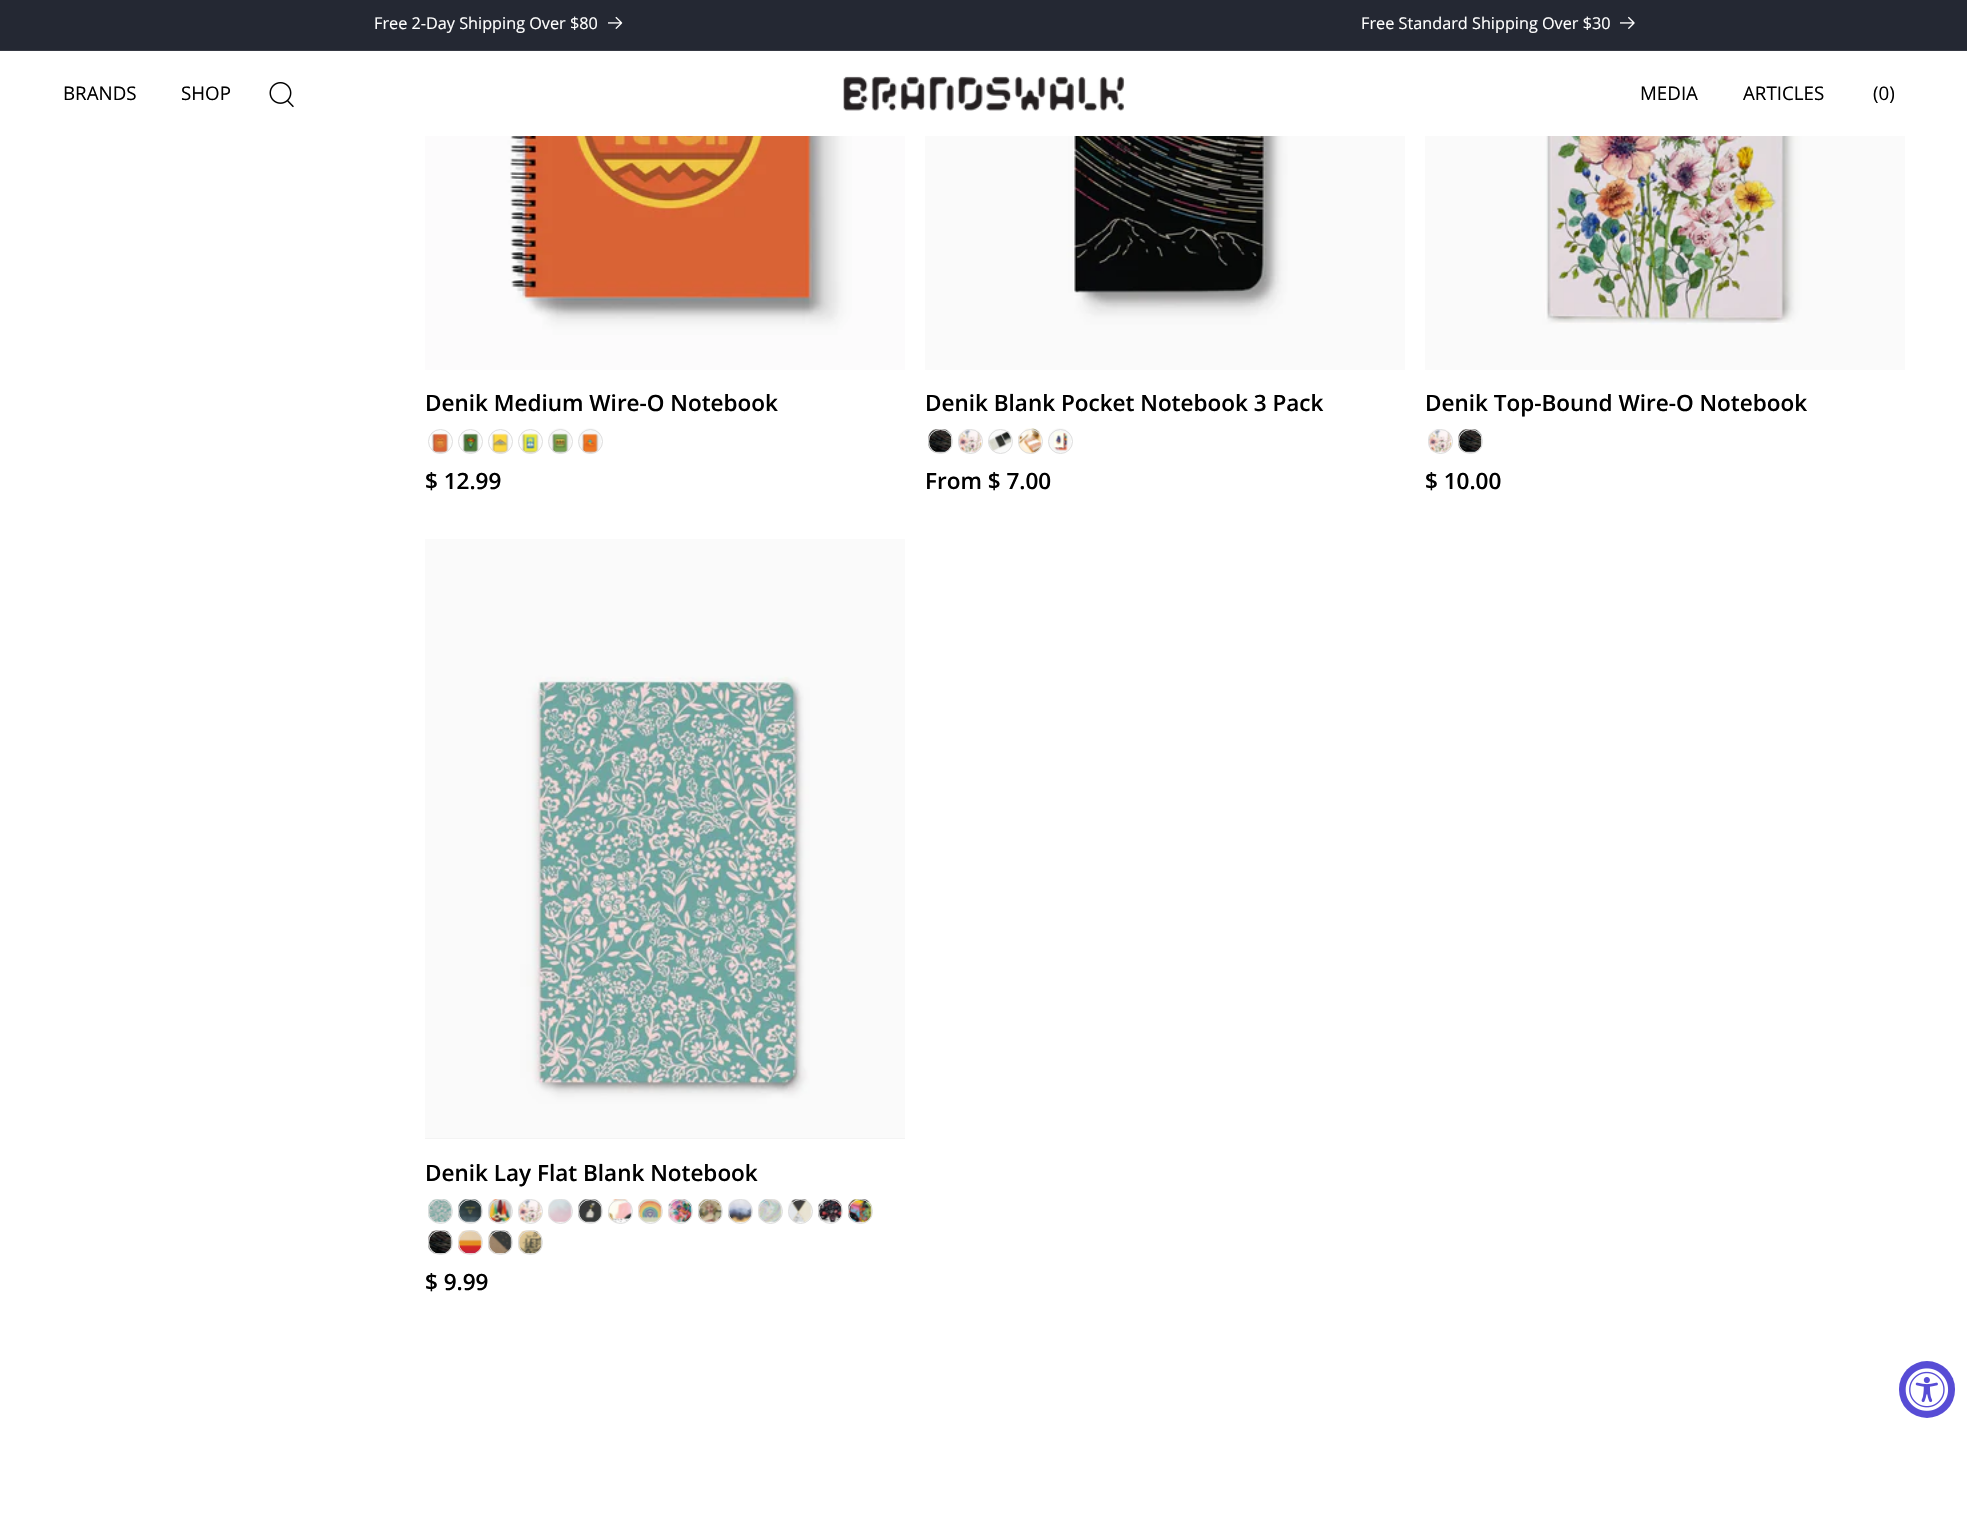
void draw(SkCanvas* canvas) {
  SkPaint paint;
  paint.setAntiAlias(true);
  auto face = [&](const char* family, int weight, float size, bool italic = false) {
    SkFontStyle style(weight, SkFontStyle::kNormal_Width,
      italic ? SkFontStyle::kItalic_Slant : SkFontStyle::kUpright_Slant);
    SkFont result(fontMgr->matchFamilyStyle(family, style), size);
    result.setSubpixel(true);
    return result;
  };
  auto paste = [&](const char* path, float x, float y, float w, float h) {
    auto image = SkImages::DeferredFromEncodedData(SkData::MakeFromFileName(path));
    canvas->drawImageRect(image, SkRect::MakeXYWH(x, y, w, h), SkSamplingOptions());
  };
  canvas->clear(0xffffffff);
  paint.setColor(0xff242833);
  canvas->drawRect(SkRect::MakeXYWH(0, 0, 1967, 50), paint);
  paint.setColor(0xff363943);
  canvas->drawRect(SkRect::MakeXYWH(0, 50, 1967, 1), paint);
  paste("img/1.png", 608, 16, 15, 13);
  paste("img/2.png", 1620, 16, 15, 13);
  paste("img/3.png", 269, 82, 25, 26);
  paste("img/4.png", 843, 76, 282, 35);
  paste("img/5.png", 425, 136, 480, 234);
  paste("img/6.png", 431, 430, 20, 24);
  paint.setStroke(true);
  paint.setStrokeWidth(1);
  paint.setColor(0xffdddddd);
  canvas->drawCircle(440.5f, 441.5f, 12, paint);
  paste("img/7.png", 461, 430, 20, 23);
  canvas->drawCircle(470.5f, 441.5f, 12, paint);
  paste("img/8.png", 491, 430, 20, 24);
  canvas->drawCircle(500.5f, 441.5f, 12, paint);
  paste("img/9.png", 521, 430, 20, 24);
  canvas->drawCircle(530.5f, 441.5f, 12, paint);
  paste("img/10.png", 549, 428, 22, 26);
  canvas->drawCircle(560.5f, 441.5f, 12, paint);
  paste("img/11.png", 579, 428, 22, 26);
  canvas->drawCircle(590.5f, 441.5f, 12, paint);
  paste("img/12.png", 925, 136, 480, 234);
  paste("img/13.png", 928, 429, 24, 24);
  canvas->drawCircle(940.5f, 441.5f, 12, paint);
  paste("img/14.png", 958, 429, 24, 24);
  canvas->drawCircle(970.5f, 441.5f, 12, paint);
  paste("img/15.png", 988, 429, 24, 24);
  canvas->drawCircle(1000.5f, 441.5f, 12, paint);
  paste("img/16.png", 1018, 428, 24, 26);
  canvas->drawCircle(1030.5f, 441.5f, 12, paint);
  paste("img/17.png", 1049, 428, 22, 25);
  canvas->drawCircle(1060.5f, 441.5f, 12, paint);
  paste("img/18.png", 1425, 136, 480, 234);
  paste("img/19.png", 1428, 429, 24, 24);
  canvas->drawCircle(1440.5f, 441.5f, 12, paint);
  paste("img/20.png", 1458, 429, 24, 24);
  canvas->drawCircle(1470.5f, 441.5f, 12, paint);
  paint.setStroke(false);
  paint.setColor(0xfff3f3f3);
  canvas->drawRect(SkRect::MakeXYWH(425, 1138, 480, 1), paint);
  paste("img/21.png", 425, 539, 480, 599);
  paste("img/22.png", 428, 1199, 24, 24);
  paint.setStroke(true);
  paint.setColor(0xffdddddd);
  canvas->drawCircle(440.5f, 1211.5f, 12, paint);
  paste("img/23.png", 458, 1199, 24, 24);
  canvas->drawCircle(470.5f, 1211.5f, 12, paint);
  paste("img/24.png", 488, 1199, 24, 24);
  canvas->drawCircle(500.5f, 1211.5f, 12, paint);
  paste("img/25.png", 518, 1199, 24, 24);
  canvas->drawCircle(530.5f, 1211.5f, 12, paint);
  paste("img/26.png", 548, 1199, 24, 24);
  canvas->drawCircle(560.5f, 1211.5f, 12, paint);
  paste("img/27.png", 578, 1199, 24, 24);
  canvas->drawCircle(590.5f, 1211.5f, 12, paint);
  paste("img/28.png", 608, 1199, 24, 24);
  canvas->drawCircle(620.5f, 1211.5f, 12, paint);
  paste("img/29.png", 638, 1199, 24, 24);
  canvas->drawCircle(650.5f, 1211.5f, 12, paint);
  paste("img/30.png", 668, 1199, 24, 24);
  canvas->drawCircle(680.5f, 1211.5f, 12, paint);
  paste("img/31.png", 698, 1199, 24, 24);
  canvas->drawCircle(710.5f, 1211.5f, 12, paint);
  paste("img/32.png", 728, 1199, 24, 24);
  canvas->drawCircle(740.5f, 1211.5f, 12, paint);
  paste("img/33.png", 758, 1199, 24, 24);
  canvas->drawCircle(770.5f, 1211.5f, 12, paint);
  paste("img/34.png", 788, 1199, 24, 24);
  canvas->drawCircle(800.5f, 1211.5f, 12, paint);
  paste("img/35.png", 818, 1199, 24, 24);
  canvas->drawCircle(830.5f, 1211.5f, 12, paint);
  paste("img/36.png", 848, 1199, 24, 24);
  canvas->drawCircle(860.5f, 1211.5f, 12, paint);
  paste("img/37.png", 428, 1230, 24, 24);
  canvas->drawCircle(440.5f, 1242.5f, 12, paint);
  paste("img/38.png", 458, 1230, 24, 24);
  canvas->drawCircle(470.5f, 1242.5f, 12, paint);
  paste("img/39.png", 488, 1230, 24, 24);
  canvas->drawCircle(500.5f, 1242.5f, 12, paint);
  paste("img/40.png", 518, 1230, 24, 24);
  canvas->drawCircle(530.5f, 1242.5f, 12, paint);
  paint.setStroke(false);
  paint.setColor(0xff574cd5);
  canvas->drawRoundRect(SkRect::MakeXYWH(1899, 1361, 56, 57), 28, 28, paint);
  paste("img/41.png", 1905, 1368, 44, 43);
  auto f0 = face("Open Sans", 400, 16.25f);
  paint.setColor(0xffffffff);
  canvas->drawString("Free 2-Day Shipping Over $80", 374, 29, f0, paint);
  canvas->drawString("Free Standard Shipping Over $30", 1361, 29, f0, paint);
  auto f1 = face("Open Sans", 400, 18.75f);
  paint.setColor(0xff000000);
  {
    const struct { const char* s; float x, y; } items[] = {
      {"BRANDS", 63, 100},
      {"SHOP", 181, 100},
      {"MEDIA", 1640, 100},
      {"ARTICLES", 1743, 100},
      {"(0)", 1873, 100},
    };
    for (auto [s, x, y] : items) {
      canvas->drawString(s, x, y, f1, paint);
    }
  }
  auto f2 = face("Open Sans", 600, 22.5f);
  {
    const struct { const char* s; float x, y; } items[] = {
      {"Denik Medium Wire-O Notebook", 425, 411},
      {"$ 12.99", 425, 489},
      {"Denik Blank Pocket Notebook 3 Pack", 925, 411},
      {"From $ 7.00", 925, 489},
      {"Denik Top-Bound Wire-O Notebook", 1425, 411},
      {"$ 10.00", 1425, 489},
      {"Denik Lay Flat Blank Notebook", 425, 1181},
      {"$ 9.99", 425, 1290},
    };
    for (auto [s, x, y] : items) {
      canvas->drawString(s, x, y, f2, paint);
    }
  }
}
